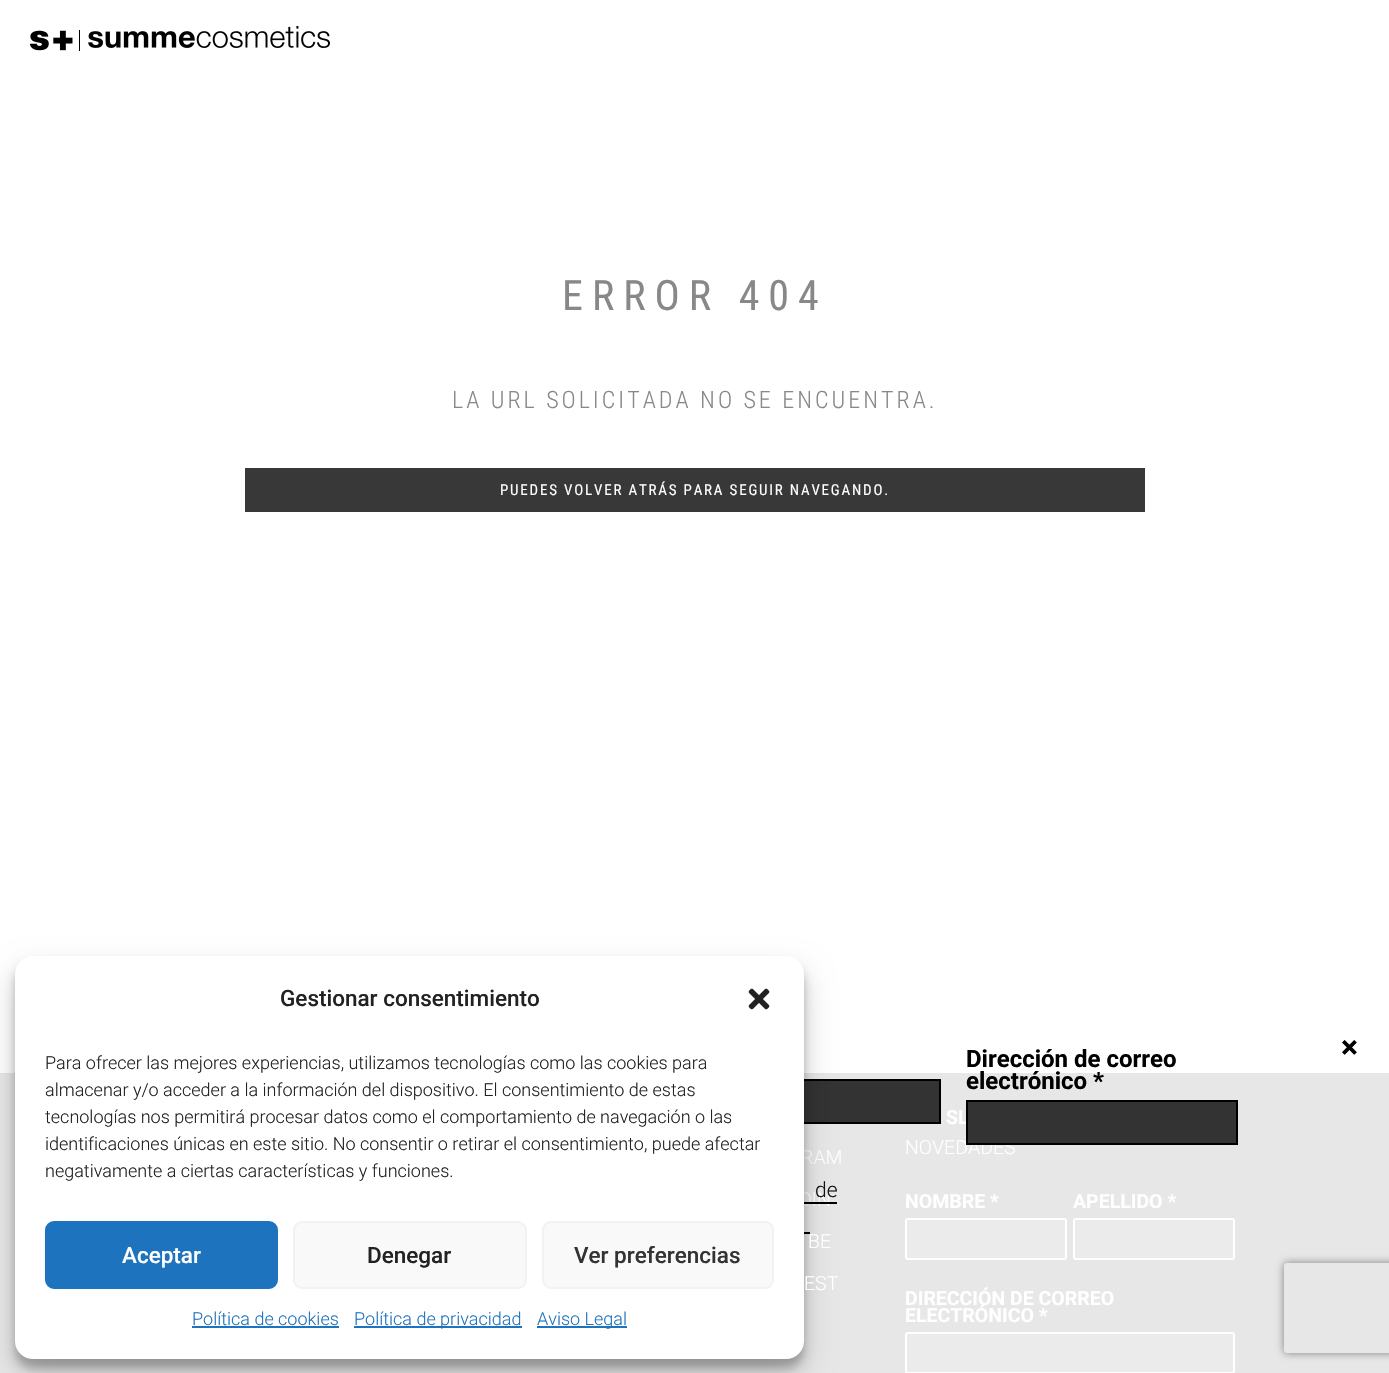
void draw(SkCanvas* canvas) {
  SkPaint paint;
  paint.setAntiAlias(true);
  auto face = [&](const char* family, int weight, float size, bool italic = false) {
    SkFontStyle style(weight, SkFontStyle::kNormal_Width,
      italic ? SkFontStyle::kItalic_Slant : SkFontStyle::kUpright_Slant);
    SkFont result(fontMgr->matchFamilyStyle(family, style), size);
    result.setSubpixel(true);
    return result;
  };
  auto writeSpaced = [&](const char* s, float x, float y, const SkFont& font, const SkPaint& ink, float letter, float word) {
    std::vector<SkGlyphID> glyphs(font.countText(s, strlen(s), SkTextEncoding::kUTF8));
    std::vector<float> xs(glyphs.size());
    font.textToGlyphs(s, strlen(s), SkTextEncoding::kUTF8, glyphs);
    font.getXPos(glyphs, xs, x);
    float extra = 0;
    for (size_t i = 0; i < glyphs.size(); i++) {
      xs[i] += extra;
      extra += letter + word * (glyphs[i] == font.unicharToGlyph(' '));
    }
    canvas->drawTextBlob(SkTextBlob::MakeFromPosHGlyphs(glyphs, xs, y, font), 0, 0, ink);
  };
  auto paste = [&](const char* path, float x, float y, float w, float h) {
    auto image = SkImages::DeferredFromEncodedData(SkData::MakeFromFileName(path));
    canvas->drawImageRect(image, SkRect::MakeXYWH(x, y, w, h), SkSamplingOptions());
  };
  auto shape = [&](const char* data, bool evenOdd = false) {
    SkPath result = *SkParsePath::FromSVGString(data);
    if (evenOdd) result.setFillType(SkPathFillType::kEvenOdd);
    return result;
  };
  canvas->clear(0xffffffff);
  paste("img/1.png", 30, 26, 300, 25);
  {
    const struct { float x, y, w, h; SkColor color; } items[] = {
      {245, 468, 900, 44, 0xff383838},
      {0, 1073, 1389, 300, 0xffe7e7e7},
      {804, 1081, 135, 41, 0xff333333},
    };
    for (auto [x, y, w, h, color] : items) {
      paint.setColor(color);
      canvas->drawRect(SkRect::MakeXYWH(x, y, w, h), paint);
    }
  }
  paint.setStroke(true);
  paint.setStrokeWidth(2);
  paint.setColor(0xff000000);
  canvas->drawRect(SkRect::MakeXYWH(670, 1080, 270, 43), paint);
  paint.setStroke(false);
  canvas->drawRect(SkRect::MakeXYWH(804, 1232, 6, 2), paint);
  paint.setColor(0xffebebeb);
  canvas->drawRoundRect(SkRect::MakeXYWH(906, 1219, 160, 40), 2, 2, paint);
  paint.setStroke(true);
  paint.setColor(0xffffffff);
  canvas->drawRoundRect(SkRect::MakeXYWH(906, 1219, 160, 40), 2, 2, paint);
  paint.setStroke(false);
  paint.setColor(0xffebebeb);
  canvas->drawRoundRect(SkRect::MakeXYWH(1074, 1219, 160, 40), 2, 2, paint);
  paint.setStroke(true);
  paint.setColor(0xffffffff);
  canvas->drawRoundRect(SkRect::MakeXYWH(1074, 1219, 160, 40), 2, 2, paint);
  paint.setStroke(false);
  paint.setColor(0xffebebeb);
  canvas->drawRoundRect(SkRect::MakeXYWH(906, 1333, 328, 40), 2, 2, paint);
  paint.setStroke(true);
  paint.setColor(0xffffffff);
  canvas->drawRoundRect(SkRect::MakeXYWH(906, 1333, 328, 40), 2, 2, paint);
  canvas->save();
  canvas->clipPath(shape("M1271 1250H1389V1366H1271ZM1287 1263H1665C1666.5 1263 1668 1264.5 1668 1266V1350C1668 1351.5 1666.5 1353 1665 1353H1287C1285.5 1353 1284 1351.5 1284 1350V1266C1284 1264.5 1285.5 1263 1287 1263Z", true), true);
  paint.setStroke(false);
  paint.setColor(0xff808080);
  paint.setMaskFilter(SkMaskFilter::MakeBlur(kNormal_SkBlurStyle, 4));
  canvas->drawRoundRect(SkRect::MakeXYWH(1284, 1263, 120, 90), 3, 3, paint);
  paint.setMaskFilter(nullptr);
  canvas->restore();
  auto f0 = face("Roboto Condensed", 400, 42);
  paint.setColor(0xff888888);
  writeSpaced("ERROR 404", 562, 310, f0, paint, 9, 0);
  auto f1 = face("Roboto Condensed", 300, 24);
  writeSpaced("LA URL SOLICITADA NO SE ENCUENTRA.", 452, 408, f1, paint, 3, 0);
  auto f2 = face("Roboto Condensed", 400, 15);
  paint.setColor(0xffffffff);
  writeSpaced("PUEDES VOLVER ATRÁS PARA SEGUIR NAVEGANDO.", 500, 495, f2, paint, 1.8f, 0);
  auto f3 = face("Roboto", 700, 32);
  paint.setColor(0xff000000);
  canvas->drawString("×", 1341, 1058, f3, paint);
  auto f4 = face("Roboto", 700, 24);
  canvas->drawString("Dirección de correo", 966, 1067, f4, paint);
  canvas->drawString("electrónico *", 966, 1089, f4, paint);
  auto f5 = face("Roboto", 300, 19.5f);
  paint.setColor(0xffffffff);
  canvas->drawString("RAM", 801, 1164, f5, paint);
  canvas->drawString("DIN", 799, 1206, f5, paint);
  paint.setColor(0xff000000);
  canvas->drawRect(SkRect::MakeXYWH(804, 1202, 33, 2), paint);
  paint.setColor(0x30000000);
  paint.setMaskFilter(SkMaskFilter::MakeBlur(kNormal_SkBlurStyle, 15));
  canvas->drawRoundRect(SkRect::MakeXYWH(15, 971, 789, 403), 18, 18, paint);
  paint.setMaskFilter(nullptr);
  paint.setColor(0x3b000000);
  paint.setMaskFilter(SkMaskFilter::MakeBlur(kNormal_SkBlurStyle, 4.5f));
  canvas->drawRoundRect(SkRect::MakeXYWH(15, 965, 789, 403), 18, 18, paint);
  paint.setMaskFilter(nullptr);
  paint.setColor(0xffffffff);
  canvas->drawRoundRect(SkRect::MakeXYWH(15, 956, 789, 403), 18, 18, paint);
  auto f6 = face("Roboto", 300, 18);
  paint.setColor(0xff222222);
  {
    const struct { const char* s; float x, y; } items[] = {
      {"negativamente a ciertas características y funciones.", 45, 1177},
      {"identificaciones únicas en este sitio. No consentir o retirar el consentimiento, puede afectar", 45, 1150},
      {"tecnologías nos permitirá procesar datos como el comportamiento de navegación o las", 45, 1123},
      {"almacenar y/o acceder a la información del dispositivo. El consentimiento de estas", 45, 1096},
      {"Para ofrecer las mejores experiencias, utilizamos tecnologías como las cookies para", 45, 1069},
    };
    for (auto [s, x, y] : items) {
      canvas->drawString(s, x, y, f6, paint);
    }
  }
  paste("img/2.png", 748, 988, 22, 22);
  paint.setColor(0xff1e73be);
  canvas->drawRect(SkRect::MakeXYWH(537, 1326, 90, 2), paint);
  canvas->drawString("Aviso Legal", 537, 1325, f6, paint);
  canvas->drawRect(SkRect::MakeXYWH(354, 1326, 168, 2), paint);
  canvas->drawString("Política de privacidad", 354, 1325, f6, paint);
  canvas->drawString("Política de cookies", 192, 1325, f6, paint);
  canvas->drawRect(SkRect::MakeXYWH(192, 1326, 147, 2), paint);
  paint.setColor(0xfff9f9f9);
  canvas->drawRoundRect(SkRect::MakeXYWH(543, 1222, 230, 66), 8, 8, paint);
  paint.setStroke(true);
  paint.setColor(0xfff2f2f2);
  canvas->drawRoundRect(SkRect::MakeXYWH(543, 1222, 230, 66), 8, 8, paint);
  auto f7 = face("Roboto", 500, 22.5f);
  paint.setStroke(false);
  paint.setColor(0xff333333);
  canvas->drawString("Ver preferencias", 574, 1263, f7, paint);
  paint.setColor(0xfff9f9f9);
  canvas->drawRoundRect(SkRect::MakeXYWH(294, 1222, 232, 66), 8, 8, paint);
  paint.setStroke(true);
  paint.setColor(0xfff2f2f2);
  canvas->drawRoundRect(SkRect::MakeXYWH(294, 1222, 232, 66), 8, 8, paint);
  paint.setStroke(false);
  paint.setColor(0xff222222);
  canvas->drawString("Denegar", 367, 1263, f7, paint);
  paint.setColor(0xff1e73be);
  canvas->drawRoundRect(SkRect::MakeXYWH(46, 1222, 231, 66), 8, 8, paint);
  paint.setStroke(true);
  canvas->drawRoundRect(SkRect::MakeXYWH(46, 1222, 231, 66), 8, 8, paint);
  paint.setStroke(false);
  paint.setColor(0xffffffff);
  canvas->drawString("Aceptar", 122, 1263, f7, paint);
  paint.setColor(0xff222222);
  canvas->drawString("Gestionar consentimiento", 280, 1006, f7, paint);
  auto f8 = face("Roboto", 300, 21);
  paint.setColor(0xff111111);
  canvas->drawString("de", 815, 1197, f8, paint);
  paint.setColor(0xffffffff);
  canvas->drawString("BE", 808, 1248, f5, paint);
  canvas->drawString("EST", 804, 1290, f5, paint);
  auto f9 = face("Roboto", 700, 19.5f);
  canvas->drawString("SL", 946, 1124, f9, paint);
  canvas->drawString("NOVEDADES", 905, 1154, f5, paint);
  paint.setColor(0xff333333);
  canvas->drawRect(SkRect::MakeXYWH(967, 1101, 270, 43), paint);
  paint.setStroke(true);
  paint.setColor(0xff000000);
  canvas->drawRect(SkRect::MakeXYWH(967, 1101, 270, 43), paint);
  paint.setStroke(false);
  paint.setColor(0xffffffff);
  {
    const struct { const char* s; float x, y; } items[] = {
      {"NOMBRE *", 905, 1208},
      {"APELLIDO *", 1073, 1208},
      {"DIRECCIÓN DE CORREO", 905, 1305},
      {"ELECTRÓNICO *", 905, 1322},
    };
    for (auto [s, x, y] : items) {
      canvas->drawString(s, x, y, f9, paint);
    }
  }
}
